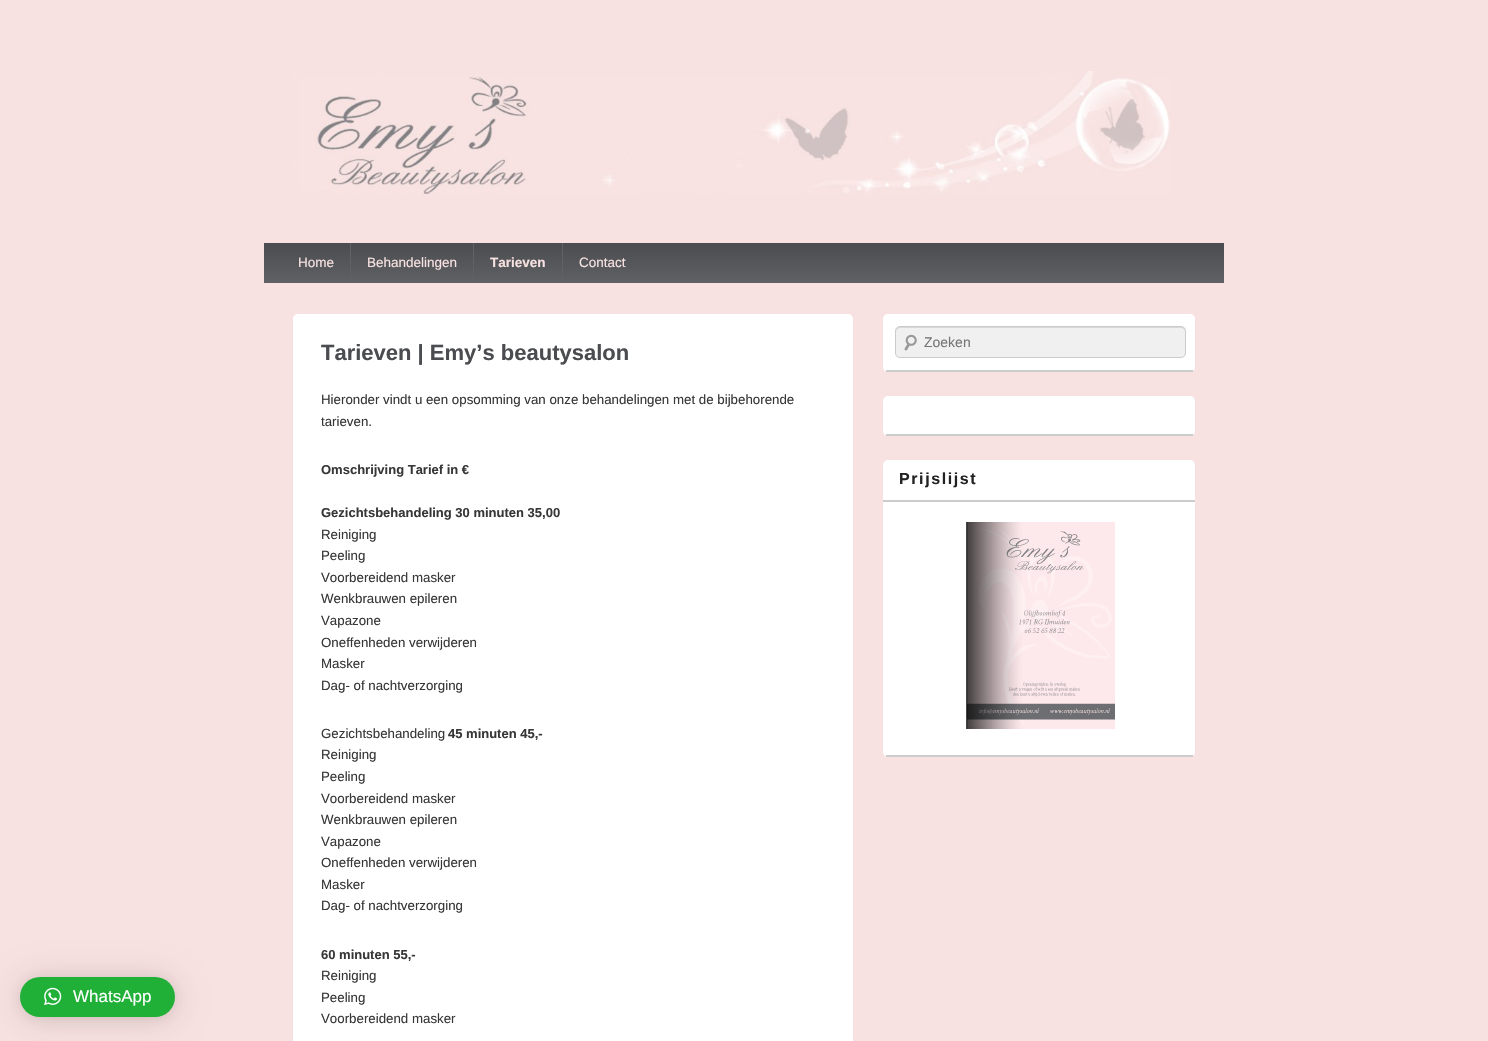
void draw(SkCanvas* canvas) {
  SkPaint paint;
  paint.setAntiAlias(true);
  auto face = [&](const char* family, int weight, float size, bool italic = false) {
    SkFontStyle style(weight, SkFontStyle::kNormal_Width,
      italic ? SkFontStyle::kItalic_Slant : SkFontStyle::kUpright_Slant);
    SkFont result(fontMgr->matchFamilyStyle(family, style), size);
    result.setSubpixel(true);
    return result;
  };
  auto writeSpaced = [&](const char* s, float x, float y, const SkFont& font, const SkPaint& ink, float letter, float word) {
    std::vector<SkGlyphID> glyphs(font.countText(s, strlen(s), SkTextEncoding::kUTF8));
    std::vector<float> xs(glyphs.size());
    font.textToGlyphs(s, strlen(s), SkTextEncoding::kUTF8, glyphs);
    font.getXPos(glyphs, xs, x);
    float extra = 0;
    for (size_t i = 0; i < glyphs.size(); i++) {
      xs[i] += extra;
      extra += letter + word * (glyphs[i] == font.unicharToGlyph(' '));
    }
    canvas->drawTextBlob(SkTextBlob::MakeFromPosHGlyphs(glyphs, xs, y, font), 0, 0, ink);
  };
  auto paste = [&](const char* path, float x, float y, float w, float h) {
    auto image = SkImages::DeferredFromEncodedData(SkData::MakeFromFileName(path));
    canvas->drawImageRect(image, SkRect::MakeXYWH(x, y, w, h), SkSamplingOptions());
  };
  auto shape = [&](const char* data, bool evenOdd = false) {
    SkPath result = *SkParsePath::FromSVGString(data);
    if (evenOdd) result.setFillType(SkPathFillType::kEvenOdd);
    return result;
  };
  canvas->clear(0xfff8e2e1);
  paint.setColor(0x29000000);
  paint.setMaskFilter(SkMaskFilter::MakeBlur(kNormal_SkBlurStyle, 16));
  canvas->drawRoundRect(SkRect::MakeXYWH(20, 979, 155, 40), 20, 20, paint);
  paint.setMaskFilter(nullptr);
  paint.setColor(0x0f000000);
  paint.setMaskFilter(SkMaskFilter::MakeBlur(kNormal_SkBlurStyle, 3));
  canvas->drawRoundRect(SkRect::MakeXYWH(20, 978, 155, 40), 20, 20, paint);
  paint.setMaskFilter(nullptr);
  paint.setColor(0xff20b038);
  canvas->drawRoundRect(SkRect::MakeXYWH(20, 977, 155, 40), 20, 20, paint);
  paste("img/1.png", 44, 987, 18, 18);
  paste("img/2.png", 293, 71, 877, 125);
  {
    const SkColor colors[] = {0xff4a4c4f, 0xff5f6164};
    const float stops[] = {0, 1};
    const SkPoint ends[] = {{744, 243}, {744, 283}};
    paint.setShader(SkGradientShader::MakeLinear(ends, colors, stops, 2, SkTileMode::kClamp));
    paint.setAlpha(255);
  }
  canvas->drawRect(SkRect::MakeXYWH(264, 243, 960, 40), paint);
  paint.setShader(nullptr);
  {
    const struct { float x, y, w, h; SkColor color; } items[] = {
      {350, 243, 1, 40, 0xff5f6164},
      {473, 243, 1, 40, 0xff5f6164},
      {562, 243, 1, 40, 0xff5f6164},
    };
    for (auto [x, y, w, h, color] : items) {
      paint.setColor(color);
      canvas->drawRect(SkRect::MakeXYWH(x, y, w, h), paint);
    }
  }
  paint.setColor(0xffffffff);
  canvas->drawRoundRect(SkRect::MakeXYWH(293, 314, 560, 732), 5, 5, paint);
  canvas->drawRoundRect(SkRect::MakeXYWH(883, 314, 312, 58), 5, 5, paint);
  paint.setColor(0xffcccccc);
  canvas->drawRect(SkRect::MakeXYWH(886, 370, 307, 2), paint);
  paint.setColor(0xfff0f0f0);
  canvas->drawRoundRect(SkRect::MakeXYWH(895, 326, 291, 32), 5, 5, paint);
  paste("img/3.png", 904, 334, 13, 17);
  paint.setColor(0xffd8d8d8);
  canvas->drawPath(shape("M900 328H1181C1183 328 1185 330 1185 332C1185 329 1184 327 1181 327H900C897 327 896 329 896 332C896 330 898 328 900 328Z"), paint);
  paint.setStroke(true);
  paint.setStrokeWidth(1);
  paint.setColor(0xffcccccc);
  canvas->drawRoundRect(SkRect::MakeXYWH(895.5f, 326.5f, 290, 31), 4.5f, 4.5f, paint);
  paint.setStroke(false);
  paint.setColor(0xffffffff);
  canvas->drawRoundRect(SkRect::MakeXYWH(883, 396, 312, 40), 5, 5, paint);
  paint.setColor(0xffcccccc);
  canvas->drawRect(SkRect::MakeXYWH(886, 434, 307, 2), paint);
  paint.setColor(0xffffffff);
  canvas->drawRoundRect(SkRect::MakeXYWH(883, 460, 312, 297), 5, 5, paint);
  paint.setColor(0xffcccccc);
  canvas->drawRect(SkRect::MakeXYWH(886, 755, 307, 2), paint);
  canvas->drawRect(SkRect::MakeXYWH(883, 500, 312, 2), paint);
  paste("img/4.png", 966, 522, 149, 207);
  auto f0 = face("Liberation Sans", 400, 17);
  paint.setColor(0xffffffff);
  canvas->drawString("WhatsApp", 73, 1002, f0, paint);
  auto f1 = face("Liberation Sans", 400, 13.5f);
  paint.setColor(0xfff8e2e1);
  canvas->drawString("Home", 298, 267, f1, paint);
  canvas->drawString("Behandelingen", 367, 267, f1, paint);
  auto f2 = face("Liberation Sans", 700, 13.5f);
  canvas->drawString("Tarieven", 490, 267, f2, paint);
  canvas->drawString("Contact", 579, 267, f1, paint);
  auto f3 = face("Liberation Sans", 700, 22);
  paint.setColor(0xff4a4c4f);
  canvas->drawString("Tarieven | Emy’s beautysalon", 321, 360, f3, paint);
  auto f4 = face("Liberation Sans", 400, 13.3f);
  paint.setColor(0xff373737);
  canvas->drawString("Hieronder vindt u een opsomming van onze behandelingen met de bijbehorende", 321, 404, f4, paint);
  canvas->drawString("tarieven.", 321, 426, f4, paint);
  auto f5 = face("Liberation Sans", 700, 13);
  canvas->drawString("Omschrijving Tarief in €", 321, 474, f5, paint);
  canvas->drawString("Gezichtsbehandeling 30 minuten 35,00", 321, 517, f5, paint);
  {
    const struct { const char* s; float x, y; } items[] = {
      {"Reiniging", 321, 539},
      {"Peeling", 321, 560},
      {"Voorbereidend masker", 321, 582},
      {"Wenkbrauwen epileren", 321, 603},
      {"Vapazone", 321, 625},
      {"Oneffenheden verwijderen", 321, 647},
      {"Masker", 321, 668},
      {"Dag- of nachtverzorging", 321, 690},
      {"Gezichtsbehandeling", 321, 738},
    };
    for (auto [s, x, y] : items) {
      canvas->drawString(s, x, y, f4, paint);
    }
  }
  canvas->drawString("45 minuten 45,-", 448, 738, f5, paint);
  {
    const struct { const char* s; float x, y; } items[] = {
      {"Reiniging", 321, 759},
      {"Peeling", 321, 781},
      {"Voorbereidend masker", 321, 803},
      {"Wenkbrauwen epileren", 321, 824},
      {"Vapazone", 321, 846},
      {"Oneffenheden verwijderen", 321, 867},
      {"Masker", 321, 889},
      {"Dag- of nachtverzorging", 321, 910},
    };
    for (auto [s, x, y] : items) {
      canvas->drawString(s, x, y, f4, paint);
    }
  }
  canvas->drawString("60 minuten 55,-", 321, 959, f5, paint);
  {
    const struct { const char* s; float x, y; } items[] = {
      {"Reiniging", 321, 980},
      {"Peeling", 321, 1002},
      {"Voorbereidend masker", 321, 1023},
    };
    for (auto [s, x, y] : items) {
      canvas->drawString(s, x, y, f4, paint);
    }
  }
  auto f6 = face("Liberation Sans", 400, 14);
  paint.setColor(0xff757575);
  canvas->drawString("Zoeken", 924, 347, f6, paint);
  auto f7 = face("Liberation Sans", 700, 16);
  paint.setColor(0xff222222);
  writeSpaced("Prijslijst", 899, 484, f7, paint, 1.6f, 0);
}
